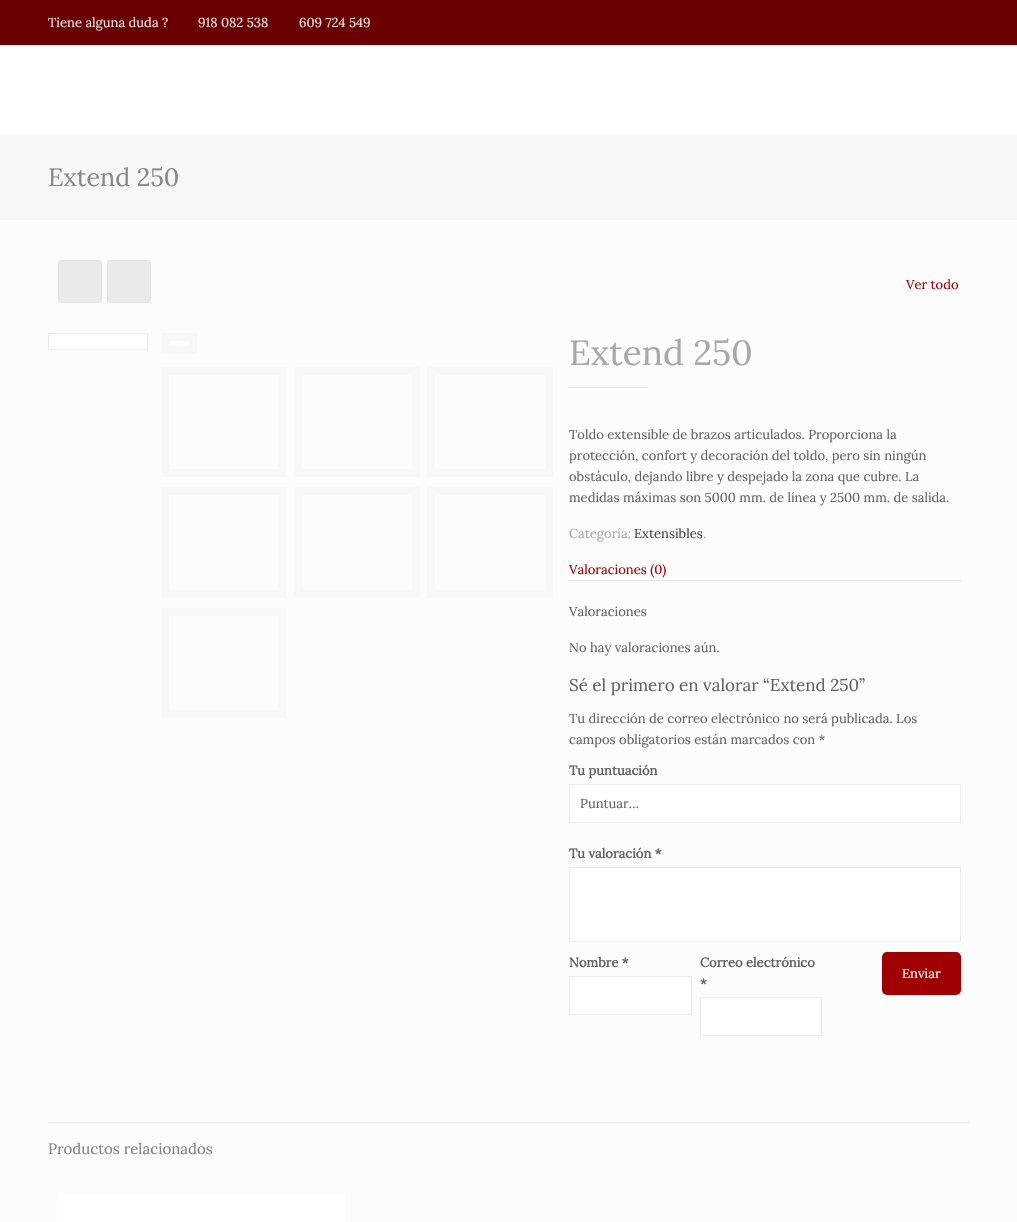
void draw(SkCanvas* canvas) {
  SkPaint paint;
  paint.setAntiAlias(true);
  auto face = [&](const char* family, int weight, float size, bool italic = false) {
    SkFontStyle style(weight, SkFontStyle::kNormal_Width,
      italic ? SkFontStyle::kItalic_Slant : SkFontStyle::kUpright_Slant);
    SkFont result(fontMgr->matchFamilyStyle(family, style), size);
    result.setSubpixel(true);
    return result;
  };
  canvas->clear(0xfffcfcfc);
  {
    const struct { float x, y, w, h; SkColor color; } items[] = {
      {0, 0, 1017, 45, 0xff6b0000},
      {0, 45, 1017, 90, 0xffffffff},
      {0, 135, 1017, 85, 0xfff7f7f7},
    };
    for (auto [x, y, w, h, color] : items) {
      paint.setColor(color);
      canvas->drawRect(SkRect::MakeXYWH(x, y, w, h), paint);
    }
  }
  canvas->drawRoundRect(SkRect::MakeXYWH(58.5f, 260.5f, 43, 42), 4.5f, 4.5f, paint);
  paint.setStroke(true);
  paint.setStrokeWidth(1);
  paint.setColor(0xfff0f0f0);
  canvas->drawRoundRect(SkRect::MakeXYWH(58.5f, 260.5f, 43, 42), 4.5f, 4.5f, paint);
  paint.setStroke(false);
  paint.setColor(0x0d000000);
  canvas->drawRect(SkRect::MakeXYWH(58, 260, 44, 43), paint);
  paint.setColor(0xfff7f7f7);
  canvas->drawRoundRect(SkRect::MakeXYWH(107.5f, 260.5f, 43, 42), 4.5f, 4.5f, paint);
  paint.setStroke(true);
  paint.setColor(0xfff0f0f0);
  canvas->drawRoundRect(SkRect::MakeXYWH(107.5f, 260.5f, 43, 42), 4.5f, 4.5f, paint);
  paint.setStroke(false);
  paint.setColor(0x0d000000);
  canvas->drawRect(SkRect::MakeXYWH(107, 260, 44, 43), paint);
  paint.setColor(0xffffffff);
  canvas->drawRect(SkRect::MakeXYWH(48.5f, 333.5f, 99, 16), paint);
  paint.setStroke(true);
  paint.setColor(0xffebebeb);
  canvas->drawRect(SkRect::MakeXYWH(48.5f, 333.5f, 99, 16), paint);
  paint.setStrokeWidth(8);
  paint.setColor(0xfff8f8f8);
  canvas->drawRect(SkRect::MakeXYWH(165, 337, 28, 13), paint);
  canvas->drawRect(SkRect::MakeXYWH(165, 371, 117, 102), paint);
  canvas->drawRect(SkRect::MakeXYWH(298, 371, 118, 102), paint);
  canvas->drawRect(SkRect::MakeXYWH(431, 371, 118, 102), paint);
  canvas->drawRect(SkRect::MakeXYWH(165, 491, 117, 103), paint);
  canvas->drawRect(SkRect::MakeXYWH(298, 491, 118, 103), paint);
  canvas->drawRect(SkRect::MakeXYWH(431, 491, 118, 103), paint);
  canvas->drawRect(SkRect::MakeXYWH(165, 612, 117, 102), paint);
  paint.setStroke(false);
  paint.setColor(0xffe8e8e8);
  canvas->drawRect(SkRect::MakeXYWH(569, 387, 79, 1), paint);
  canvas->drawRect(SkRect::MakeXYWH(569, 580, 392, 1), paint);
  paint.setColor(0xffffffff);
  canvas->drawRect(SkRect::MakeXYWH(569.5f, 784.5f, 391, 38), paint);
  paint.setStroke(true);
  paint.setStrokeWidth(1);
  paint.setColor(0xffebebeb);
  canvas->drawRect(SkRect::MakeXYWH(569.5f, 784.5f, 391, 38), paint);
  paint.setStroke(false);
  paint.setColor(0xffffffff);
  canvas->drawRect(SkRect::MakeXYWH(569.5f, 867.5f, 391, 74), paint);
  paint.setStroke(true);
  paint.setColor(0xffebebeb);
  canvas->drawRect(SkRect::MakeXYWH(569.5f, 867.5f, 391, 74), paint);
  paint.setStroke(false);
  paint.setColor(0xffffffff);
  canvas->drawRect(SkRect::MakeXYWH(569.5f, 976.5f, 122, 38), paint);
  paint.setStroke(true);
  paint.setColor(0xffebebeb);
  canvas->drawRect(SkRect::MakeXYWH(569.5f, 976.5f, 122, 38), paint);
  paint.setStroke(false);
  paint.setColor(0xffffffff);
  canvas->drawRect(SkRect::MakeXYWH(700.5f, 997.5f, 121, 38), paint);
  paint.setStroke(true);
  paint.setColor(0xffebebeb);
  canvas->drawRect(SkRect::MakeXYWH(700.5f, 997.5f, 121, 38), paint);
  paint.setStroke(false);
  paint.setColor(0xff9f0202);
  canvas->drawRoundRect(SkRect::MakeXYWH(882, 952, 79, 43), 5, 5, paint);
  paint.setStroke(true);
  paint.setColor(0x08000000);
  canvas->drawRect(SkRect::MakeXYWH(882.5f, 952.5f, 78, 42), paint);
  paint.setStroke(false);
  paint.setColor(0xffe8e8e8);
  canvas->drawRect(SkRect::MakeXYWH(48, 1122, 921, 1), paint);
  paint.setColor(0xffffffff);
  canvas->drawRect(SkRect::MakeXYWH(57, 1194, 288, 28), paint);
  auto f0 = face("Lora", 400, 13);
  paint.setColor(0xffe2e2e2);
  {
    const struct { const char* s; float x, y; } items[] = {
      {"Tiene alguna duda ?", 48, 27},
      {"918 082 538", 198, 27},
      {"609 724 549", 299, 27},
    };
    for (auto [s, x, y] : items) {
      canvas->drawString(s, x, y, f0, paint);
    }
  }
  auto f1 = face("Lora", 400, 25);
  paint.setColor(0xff888888);
  canvas->drawString("Extend 250", 48, 186, f1, paint);
  paint.setColor(0xff9f0202);
  canvas->drawString("Ver todo", 906, 289, f0, paint);
  auto f2 = face("Lora", 400, 35);
  paint.setColor(0xffa8a8a8);
  canvas->drawString("Extend 250", 569, 365, f2, paint);
  paint.setColor(0xff626262);
  {
    const struct { const char* s; float x, y; } items[] = {
      {"Toldo extensible de brazos articulados. Proporciona la", 569, 439},
      {"protección, confort y decoración del toldo, pero sin ningún", 569, 460},
      {"obstáculo, dejando libre y despejado la zona que cubre. La", 569, 481},
      {"medidas máximas son 5000 mm. de línea y 2500 mm. de salida.", 569, 502},
    };
    for (auto [s, x, y] : items) {
      canvas->drawString(s, x, y, f0, paint);
    }
  }
  paint.setColor(0xffa8a8a8);
  canvas->drawString("Categoría:", 569, 538, f0, paint);
  paint.setColor(0xff444444);
  canvas->drawString("Extensibles", 634, 538, f0, paint);
  paint.setColor(0xffa8a8a8);
  canvas->drawString(".", 703, 538, f0, paint);
  paint.setColor(0xff9f0202);
  canvas->drawString("Valoraciones (0)", 569, 574, f0, paint);
  paint.setColor(0xff626262);
  canvas->drawString("Valoraciones", 569, 616, f0, paint);
  canvas->drawString("No hay valoraciones aún.", 569, 652, f0, paint);
  auto f3 = face("Lora", 400, 17);
  canvas->drawString("Sé el primero en valorar “Extend 250”", 569, 691, f3, paint);
  canvas->drawString("Tu dirección de correo electrónico no será publicada. Los", 569, 723, f0, paint);
  canvas->drawString("campos obligatorios están marcados con *", 569, 744, f0, paint);
  auto f4 = face("Lora", 700, 13);
  canvas->drawString("Tu puntuación", 569, 775, f4, paint);
  canvas->drawString("Puntuar…", 580, 808, f0, paint);
  {
    const struct { const char* s; float x, y; } items[] = {
      {"Tu valoración *", 569, 858},
      {"Nombre *", 569, 967},
      {"Correo electrónico", 700, 967},
      {"*", 700, 988},
    };
    for (auto [s, x, y] : items) {
      canvas->drawString(s, x, y, f4, paint);
    }
  }
  paint.setColor(0xffffffff);
  canvas->drawString("Enviar", 902, 978, f0, paint);
  auto f5 = face("Lora", 400, 15);
  paint.setColor(0xff808080);
  canvas->drawString("Productos relacionados", 48, 1154, f5, paint);
}
